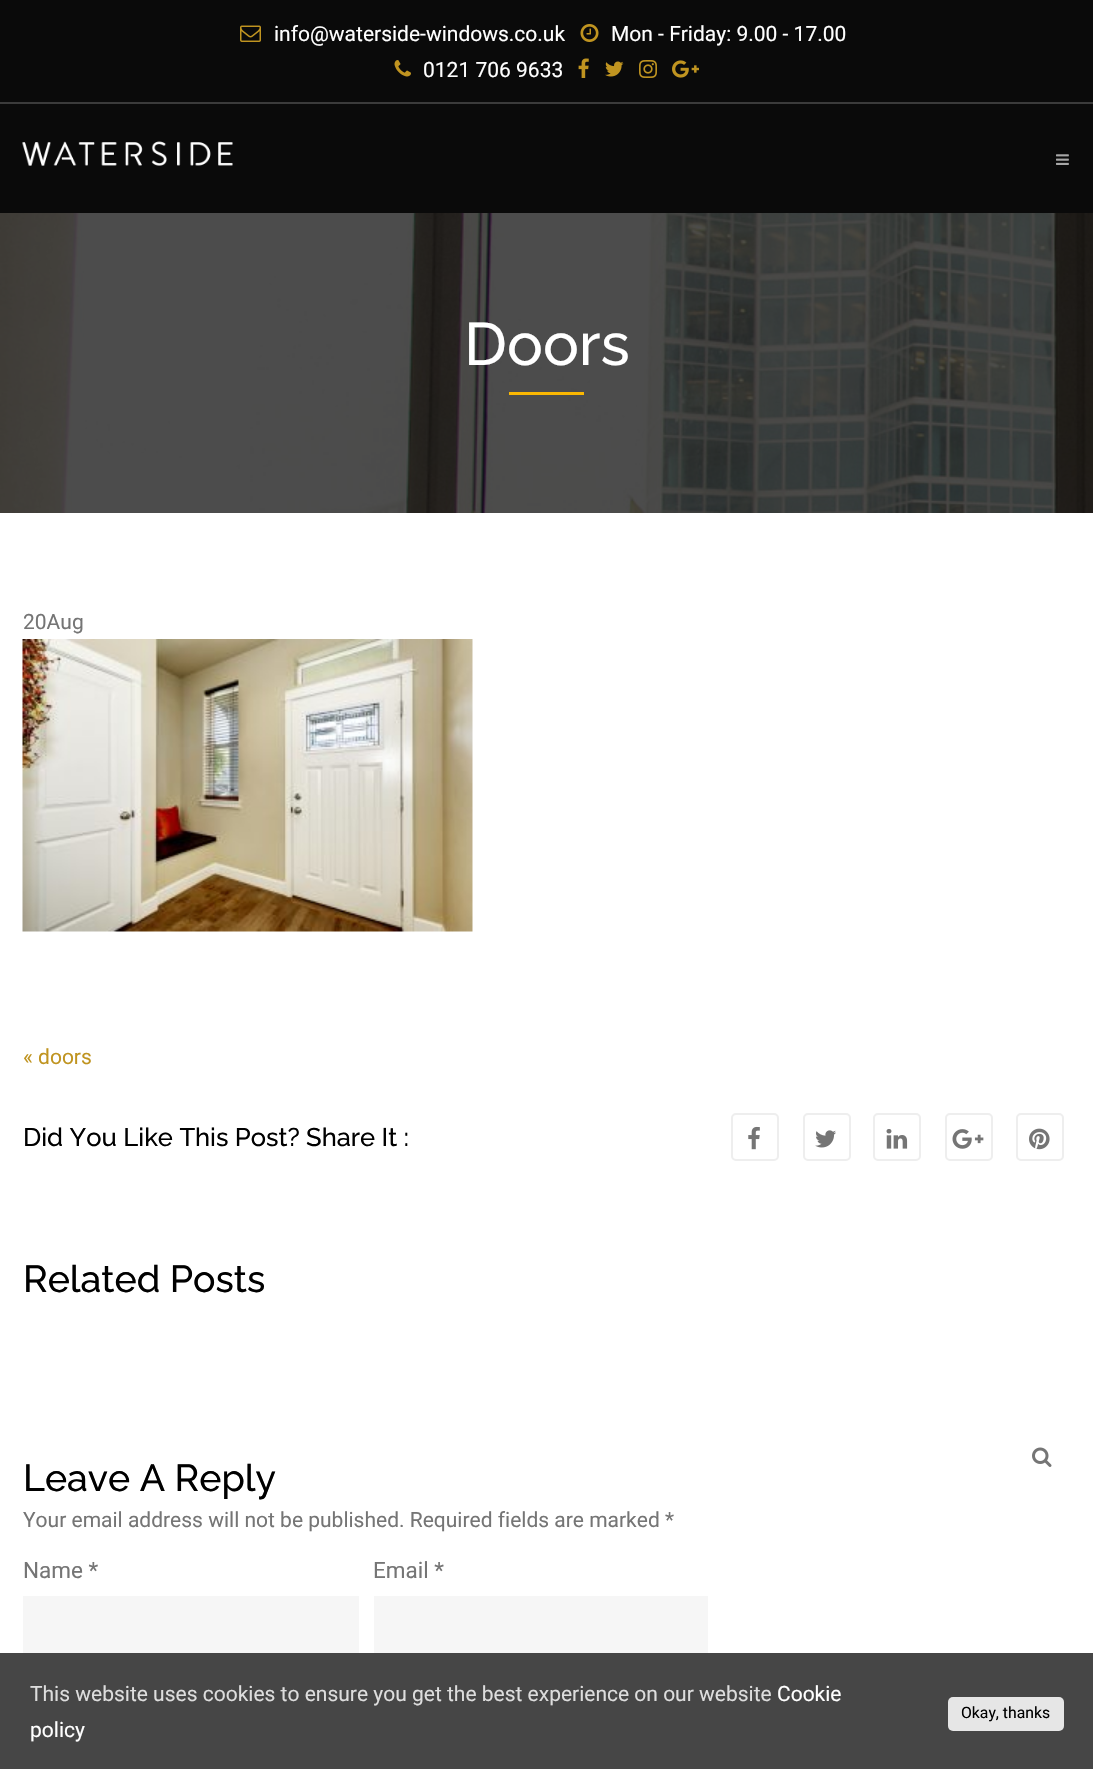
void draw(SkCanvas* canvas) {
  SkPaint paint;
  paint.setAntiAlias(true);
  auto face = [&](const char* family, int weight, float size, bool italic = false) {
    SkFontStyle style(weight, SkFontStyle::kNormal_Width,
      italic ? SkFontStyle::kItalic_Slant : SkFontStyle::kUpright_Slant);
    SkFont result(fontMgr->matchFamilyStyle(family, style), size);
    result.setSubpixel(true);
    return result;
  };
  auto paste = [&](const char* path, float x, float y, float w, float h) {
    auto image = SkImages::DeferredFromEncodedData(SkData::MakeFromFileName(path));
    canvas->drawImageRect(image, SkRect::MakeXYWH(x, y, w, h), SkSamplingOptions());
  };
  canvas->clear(0xffffffff);
  paint.setColor(0xff0a0a0a);
  canvas->drawRect(SkRect::MakeXYWH(0, 0, 1093, 102), paint);
  paint.setColor(0xff3b3b3b);
  canvas->drawRect(SkRect::MakeXYWH(0, 102, 1093, 2), paint);
  paste("img/1.png", 240, 25, 21, 17);
  paste("img/2.png", 580, 24, 19, 18);
  paste("img/3.png", 394, 60, 17, 17);
  paste("img/4.png", 578, 58, 11, 20);
  paste("img/5.png", 605, 61, 19, 16);
  paste("img/6.png", 639, 60, 18, 18);
  paste("img/7.png", 672, 60, 27, 18);
  paint.setColor(0xff0a0a0a);
  canvas->drawRect(SkRect::MakeXYWH(0, 104, 1093, 109), paint);
  paste("img/8.png", 22, 141, 211, 25);
  paste("img/9.png", 1056, 154, 13, 11);
  paste("img/10.png", 0, 213, 1093, 300);
  paint.setColor(0xfffab702);
  canvas->drawRect(SkRect::MakeXYWH(509, 392, 75, 3), paint);
  paste("img/11.png", 22, 639, 451, 293);
  paint.setStroke(true);
  paint.setStrokeWidth(2);
  paint.setColor(0xffeeeeee);
  canvas->drawRoundRect(SkRect::MakeXYWH(732, 1114, 46, 46), 4, 4, paint);
  paste("img/12.png", 748, 1126, 12, 24);
  canvas->drawRoundRect(SkRect::MakeXYWH(804, 1114, 46, 46), 4, 4, paint);
  paste("img/13.png", 815, 1130, 21, 18);
  canvas->drawRoundRect(SkRect::MakeXYWH(874, 1114, 46, 46), 4, 4, paint);
  paste("img/14.png", 886, 1129, 22, 20);
  canvas->drawRoundRect(SkRect::MakeXYWH(946, 1114, 46, 46), 4, 4, paint);
  paste("img/15.png", 952, 1129, 32, 20);
  canvas->drawRoundRect(SkRect::MakeXYWH(1017, 1114, 46, 46), 4, 4, paint);
  paste("img/16.png", 1029, 1128, 21, 22);
  paint.setStroke(false);
  paint.setColor(0xfff6f6f6);
  canvas->drawRect(SkRect::MakeXYWH(23, 1596, 336, 57), paint);
  canvas->drawRect(SkRect::MakeXYWH(374, 1596, 334, 57), paint);
  paste("img/17.png", 1032, 1447, 20, 20);
  paint.setColor(0xff464646);
  canvas->drawRect(SkRect::MakeXYWH(0, 1653, 1093, 116), paint);
  paint.setColor(0xffe6e6e6);
  canvas->drawRoundRect(SkRect::MakeXYWH(948, 1697, 116, 34), 5, 5, paint);
  auto f0 = face("Roboto", 400, 21);
  paint.setColor(0xffffffff);
  {
    const struct { const char* s; float x, y; } items[] = {
      {"info@waterside-windows.co.uk", 274, 41},
      {"Mon - Friday: 9.00 - 17.00", 611, 41},
      {"0121 706 9633", 423, 77},
    };
    for (auto [s, x, y] : items) {
      canvas->drawString(s, x, y, f0, paint);
    }
  }
  auto f1 = face("Raleway", 500, 60);
  canvas->drawString("Doors", 464, 365, f1, paint);
  paint.setColor(0xff757575);
  canvas->drawString("20Aug", 23, 629, f0, paint);
  paint.setColor(0xffc09420);
  canvas->drawString("« doors", 23, 1064, f0, paint);
  auto f2 = face("Raleway", 500, 25.5f);
  paint.setColor(0xff000000);
  canvas->drawString("Did You Like This Post? Share It :", 23, 1146, f2, paint);
  auto f3 = face("Raleway", 500, 37.5f);
  canvas->drawString("Related Posts", 23, 1292, f3, paint);
  canvas->drawString("Leave A Reply", 23, 1491, f3, paint);
  paint.setColor(0xff757575);
  canvas->drawString("Your email address will not be published. Required fields are marked *", 23, 1527, f0, paint);
  auto f4 = face("Roboto", 400, 22.5f);
  canvas->drawString("Name *", 23, 1578, f4, paint);
  canvas->drawString("Email *", 373, 1578, f4, paint);
  paint.setColor(0xffdddddd);
  canvas->drawString("This website uses cookies to ensure you get the best experience on our website", 30, 1701, f0, paint);
  paint.setColor(0xffffffff);
  canvas->drawString("Cookie", 777, 1701, f0, paint);
  canvas->drawString("policy", 30, 1737, f0, paint);
  auto f5 = face("Roboto", 400, 15.75f);
  paint.setColor(0xff000000);
  canvas->drawString("Okay, thanks", 961, 1718, f5, paint);
}
